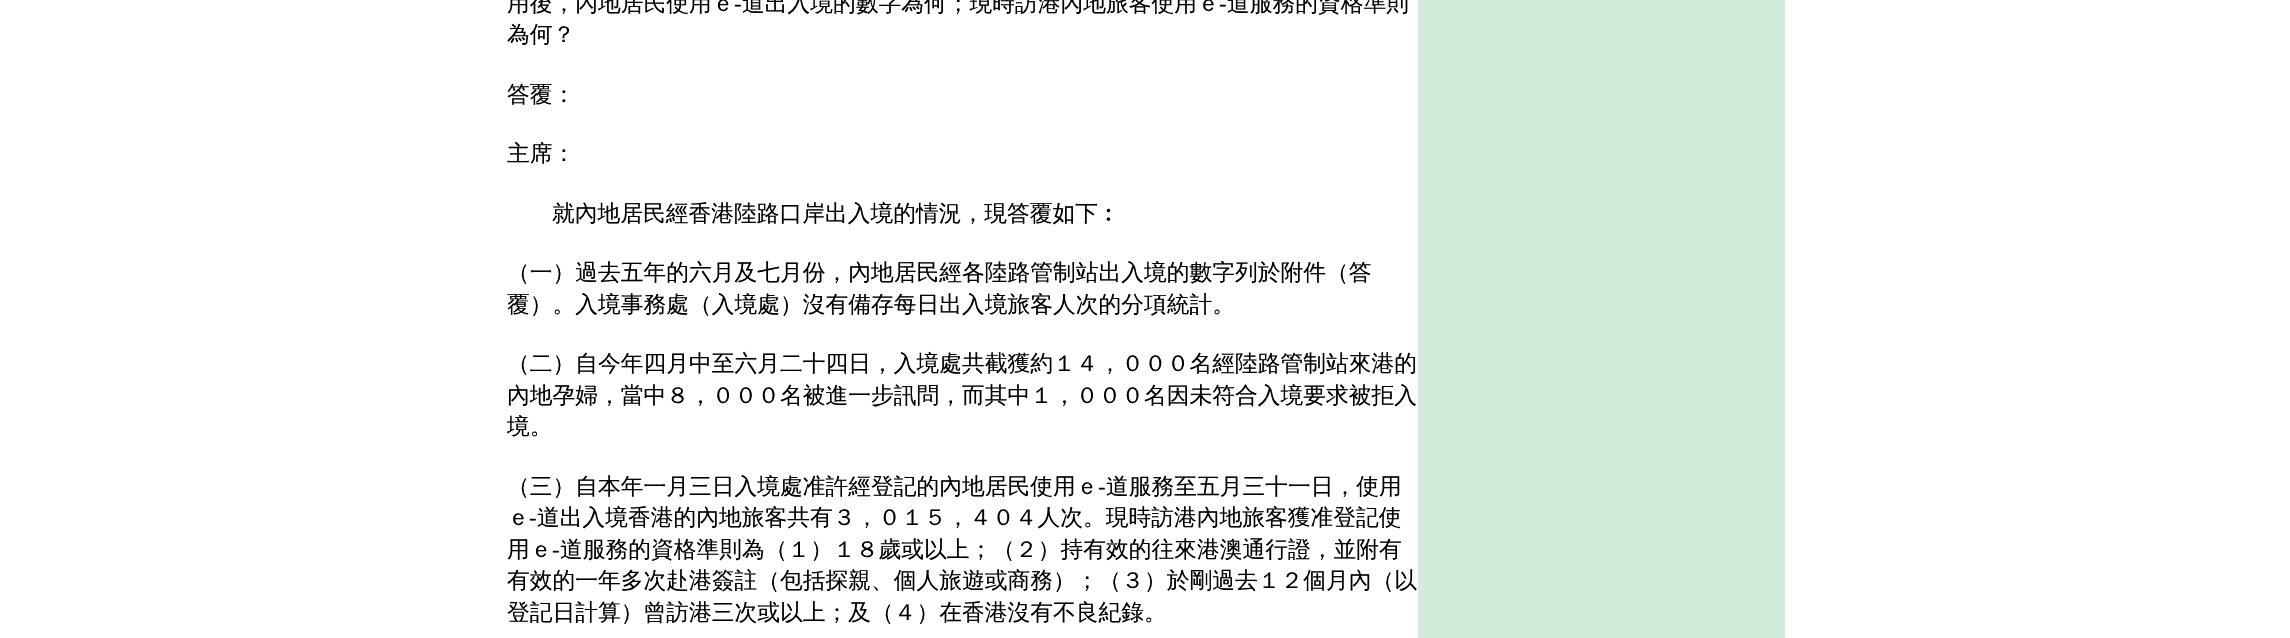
void draw(SkCanvas* canvas) {
  SkPaint paint;
  paint.setAntiAlias(true);
  auto face = [&](const char* family, int weight, float size, bool italic = false) {
    SkFontStyle style(weight, SkFontStyle::kNormal_Width,
      italic ? SkFontStyle::kItalic_Slant : SkFontStyle::kUpright_Slant);
    SkFont result(fontMgr->matchFamilyStyle(family, style), size);
    result.setSubpixel(true);
    return result;
  };
  canvas->clear(0xffffffff);
  paint.setColor(0xffd1ecda);
  canvas->drawRect(SkRect::MakeXYWH(1418, 0, 367, 638), paint);
  auto f0 = face("WenQuanYi Zen Hei", 500, 22.75f);
  paint.setColor(0xff000000);
  canvas->drawString("用後，內地居民使用ｅ", 507, 11, f0, paint);
  auto f1 = face("Liberation Serif", 400, 22.75f);
  canvas->drawString("-", 734, 11, f1, paint);
  canvas->drawString("道出入境的數字為何；現時訪港內地旅客使用ｅ", 742, 11, f0, paint);
  canvas->drawString("-", 1219, 11, f1, paint);
  {
    const struct { const char* s; float x, y; } items[] = {
      {"道服務的資格準則", 1227, 11},
      {"為何？", 507, 42},
      {"答覆：", 507, 102},
      {"主席：", 507, 161},
      {"就內地居民經香港陸路口岸出入境的情況，現答覆如下︰", 552, 221},
      {"（一）過去五年的六月及七月份，內地居民經各陸路管制站出入境的數字列於附件（答", 507, 280},
      {"覆）。入境事務處（入境處）沒有備存每日出入境旅客人次的分項統計。", 507, 312},
      {"（二）自今年四月中至六月二十四日，入境處共截獲約１４，０００名經陸路管制站來港的", 507, 371},
      {"內地孕婦，當中８，０００名被進一步訊問，而其中１，０００名因未符合入境要求被拒入", 507, 403},
      {"境。", 507, 434},
      {"（三）自本年一月三日入境處准許經登記的內地居民使用ｅ", 507, 494},
    };
    for (auto [s, x, y] : items) {
      canvas->drawString(s, x, y, f0, paint);
    }
  }
  canvas->drawString("-", 1098, 494, f1, paint);
  canvas->drawString("道服務至五月三十一日，使用", 1106, 494, f0, paint);
  canvas->drawString("ｅ", 507, 525, f0, paint);
  canvas->drawString("-", 529, 525, f1, paint);
  canvas->drawString("道出入境香港的內地旅客共有３，０１５，４０４人次。現時訪港內地旅客獲准登記使", 537, 525, f0, paint);
  canvas->drawString("用ｅ", 507, 557, f0, paint);
  canvas->drawString("-", 552, 557, f1, paint);
  {
    const struct { const char* s; float x, y; } items[] = {
      {"道服務的資格準則為（１）１８歲或以上；（２）持有效的往來港澳通行證，並附有", 560, 557},
      {"有效的一年多次赴港簽註（包括探親、個人旅遊或商務）；（３）於剛過去１２個月內（以", 507, 588},
      {"登記日計算）曾訪港三次或以上；及（４）在香港沒有不良紀錄。", 507, 620},
    };
    for (auto [s, x, y] : items) {
      canvas->drawString(s, x, y, f0, paint);
    }
  }
}
